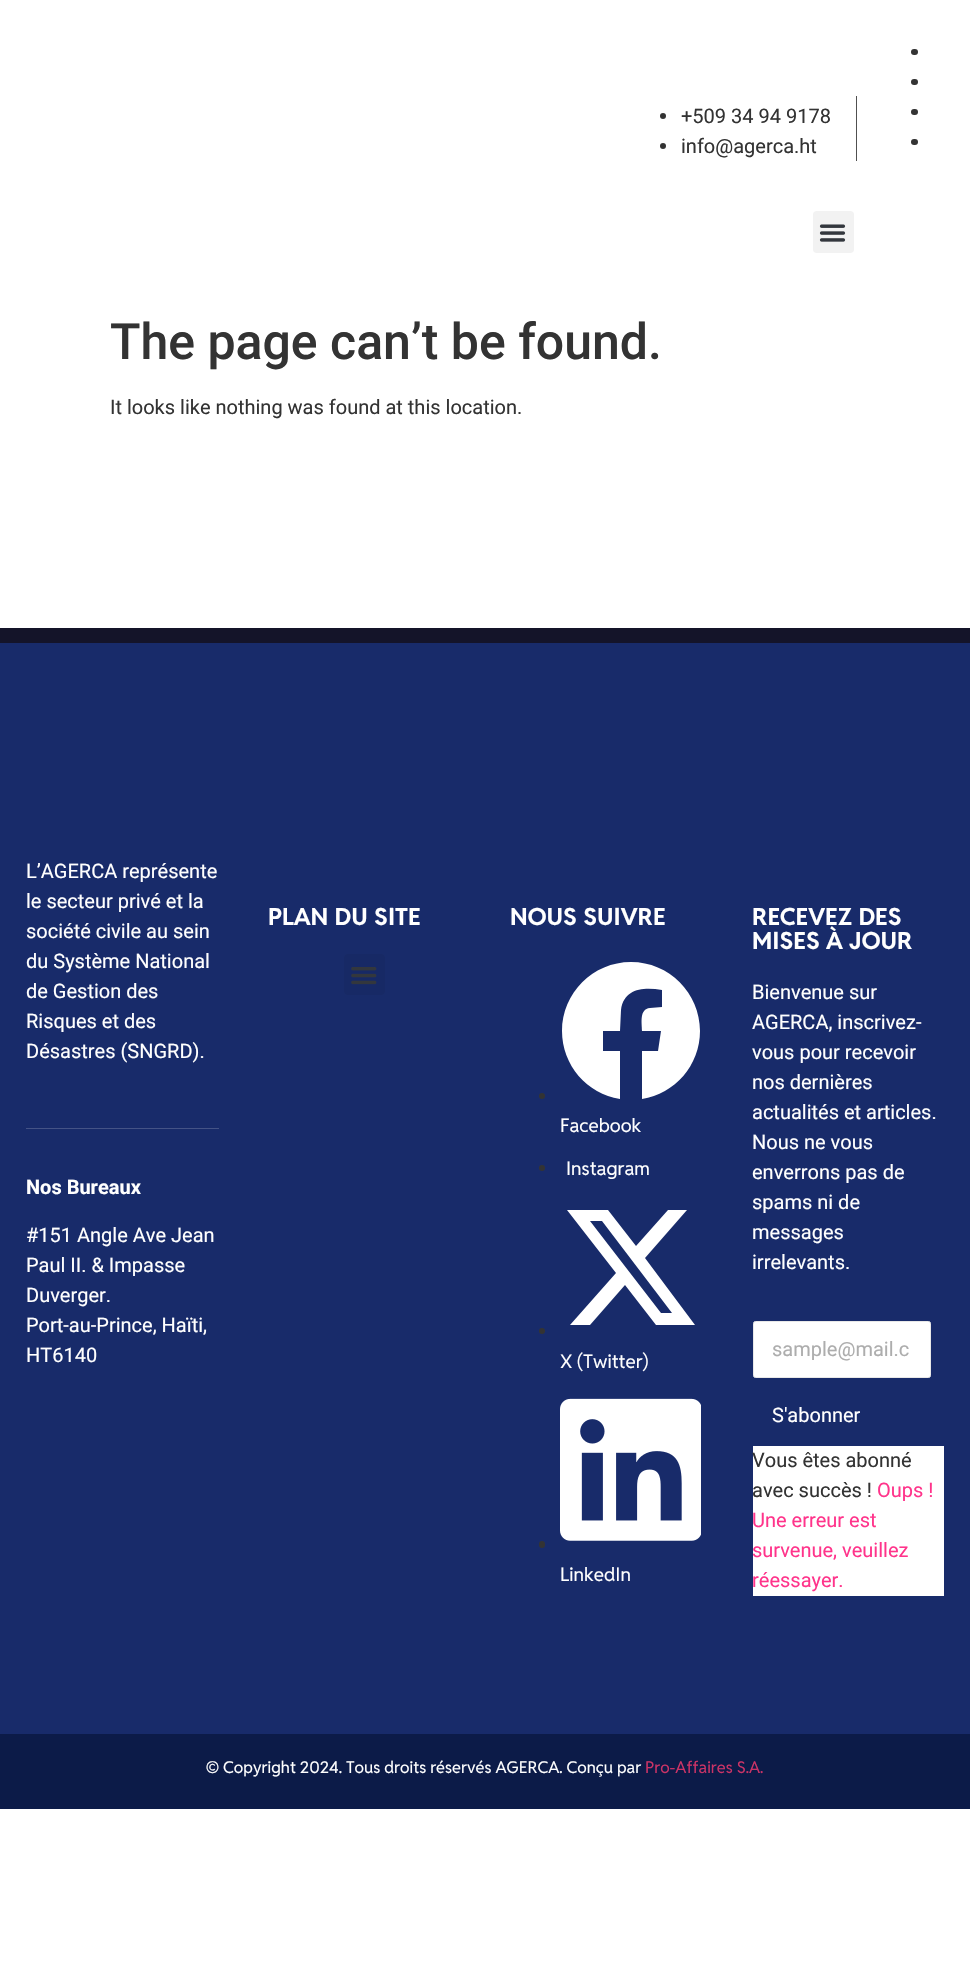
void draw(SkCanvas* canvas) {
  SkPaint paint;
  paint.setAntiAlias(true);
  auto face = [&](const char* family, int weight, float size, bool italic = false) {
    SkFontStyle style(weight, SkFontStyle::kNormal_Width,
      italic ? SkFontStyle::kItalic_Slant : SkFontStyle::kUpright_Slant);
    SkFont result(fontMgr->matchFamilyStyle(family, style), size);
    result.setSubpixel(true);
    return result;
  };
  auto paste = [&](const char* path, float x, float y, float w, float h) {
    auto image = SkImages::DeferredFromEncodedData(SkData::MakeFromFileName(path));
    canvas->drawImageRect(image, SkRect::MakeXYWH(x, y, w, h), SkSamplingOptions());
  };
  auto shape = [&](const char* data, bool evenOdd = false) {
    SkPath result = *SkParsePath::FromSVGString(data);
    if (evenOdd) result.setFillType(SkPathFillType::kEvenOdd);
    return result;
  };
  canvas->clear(0xffffffff);
  paint.setColor(0xff505050);
  canvas->drawRect(SkRect::MakeXYWH(856, 96, 1, 65), paint);
  paint.setColor(0xff333333);
  canvas->drawCircle(663, 116, 3, paint);
  canvas->drawCircle(663, 146, 3, paint);
  canvas->drawRoundRect(SkRect::MakeXYWH(911, 49, 7, 6), 3, 3, paint);
  canvas->drawRoundRect(SkRect::MakeXYWH(911, 79, 7, 6), 3, 3, paint);
  canvas->drawRoundRect(SkRect::MakeXYWH(911, 109, 7, 6), 3, 3, paint);
  canvas->drawRoundRect(SkRect::MakeXYWH(911, 139, 7, 6), 3, 3, paint);
  paint.setColor(0xfff2f2f2);
  canvas->drawRoundRect(SkRect::MakeXYWH(813, 211, 41, 42), 4, 4, paint);
  paste("img/1.png", 819, 224, 27, 18);
  {
    const struct { float x, y, w, h; SkColor color; } items[] = {
      {0, 643, 970, 1091, 0xff182b6a},
      {0, 628, 970, 15, 0xff141429},
      {26, 1128, 193, 1, 0xff445386},
    };
    for (auto [x, y, w, h, color] : items) {
      paint.setColor(color);
      canvas->drawRect(SkRect::MakeXYWH(x, y, w, h), paint);
    }
  }
  paint.setColor(0xff172965);
  canvas->drawRoundRect(SkRect::MakeXYWH(344, 954, 41, 41), 4, 4, paint);
  paste("img/2.png", 351, 967, 26, 18);
  paint.setColor(0xff333333);
  canvas->drawCircle(542, 1096, 3, paint);
  paint.setColor(0xffffffff);
  canvas->drawPath(shape("M700 1031C700 993 669 962 631 962C593 962 562 993 562 1031C562 1065 587 1094 620 1099V1051H603V1031H620L621 1010C624 988 644 987 662 990V1007L650 1008C639 1009 642 1023 642 1031H661L658 1051H642V1099C675 1094 700 1065 700 1031Z"), paint);
  paint.setColor(0xff333333);
  canvas->drawCircle(542, 1168, 3, paint);
  canvas->drawCircle(542, 1331, 3, paint);
  paint.setColor(0xffffffff);
  canvas->drawPath(shape("M668 1210H687L645 1258L695 1325H656L625 1285L590 1325H570L616 1273L567 1210H608L636 1246ZM661 1313H672L602 1221H590Z"), paint);
  paste("img/3.png", 560, 1398, 141, 143);
  paint.setColor(0xff333333);
  canvas->drawRoundRect(SkRect::MakeXYWH(539, 1541, 6, 7), 3, 3, paint);
  paint.setColor(0xffffffff);
  canvas->drawRoundRect(SkRect::MakeXYWH(753.5f, 1321.5f, 177, 56), 2, 2, paint);
  paint.setStroke(true);
  paint.setStrokeWidth(1);
  paint.setColor(0xffe8e8e8);
  canvas->drawRoundRect(SkRect::MakeXYWH(753.5f, 1321.5f, 177, 56), 2, 2, paint);
  paint.setStroke(false);
  paint.setColor(0xffffffff);
  canvas->drawRect(SkRect::MakeXYWH(753, 1446, 191, 150), paint);
  paint.setColor(0xff0c1b48);
  canvas->drawRect(SkRect::MakeXYWH(0, 1734, 970, 75), paint);
  auto f0 = face("Roboto", 400, 20);
  paint.setColor(0xff333333);
  canvas->drawString("+509 34 94 9178", 681, 123, f0, paint);
  canvas->drawString("info@agerca.ht", 681, 153, f0, paint);
  auto f1 = face("Roboto", 500, 50);
  canvas->drawString("The page can’t be found.", 110, 359, f1, paint);
  canvas->drawString("It looks like nothing was found at this location.", 110, 414, f0, paint);
  paint.setColor(0xffffffff);
  {
    const struct { const char* s; float x, y; } items[] = {
      {"L’AGERCA représente", 26, 878},
      {"le secteur privé et la", 26, 908},
      {"société civile au sein", 26, 938},
      {"du Système National", 26, 968},
      {"de Gestion des", 26, 998},
      {"Risques et des", 26, 1028},
      {"Désastres (SNGRD).", 26, 1058},
    };
    for (auto [s, x, y] : items) {
      canvas->drawString(s, x, y, f0, paint);
    }
  }
  auto f2 = face("Roboto", 700, 20);
  canvas->drawString("Nos Bureaux", 26, 1194, f2, paint);
  {
    const struct { const char* s; float x, y; } items[] = {
      {"#151 Angle Ave Jean", 26, 1242},
      {"Paul II. & Impasse", 26, 1272},
      {"Duverger.", 26, 1302},
      {"Port-au-Prince, Haïti,", 26, 1332},
      {"HT6140", 26, 1362},
    };
    for (auto [s, x, y] : items) {
      canvas->drawString(s, x, y, f0, paint);
    }
  }
  auto f3 = face("Reddit Sans", 700, 23.75f);
  canvas->drawString("PLAN DU SITE", 268, 925, f3, paint);
  canvas->drawString("NOUS SUIVRE", 510, 925, f3, paint);
  auto f4 = face("Reddit Sans", 400, 18.75f);
  {
    const struct { const char* s; float x, y; } items[] = {
      {"Facebook", 560, 1132},
      {"Instagram", 566, 1175},
      {"X (Twitter)", 560, 1368},
      {"LinkedIn", 560, 1581},
    };
    for (auto [s, x, y] : items) {
      canvas->drawString(s, x, y, f4, paint);
    }
  }
  canvas->drawString("RECEVEZ DES", 752, 925, f3, paint);
  canvas->drawString("MISES À JOUR", 752, 949, f3, paint);
  {
    const struct { const char* s; float x, y; } items[] = {
      {"Bienvenue sur", 752, 999},
      {"AGERCA, inscrivez-", 752, 1029},
      {"vous pour recevoir", 752, 1059},
      {"nos dernières", 752, 1089},
      {"actualités et articles.", 752, 1119},
      {"Nous ne vous", 752, 1149},
      {"enverrons pas de", 752, 1179},
      {"spams ni de", 752, 1209},
      {"messages", 752, 1239},
      {"irrelevants.", 752, 1269},
    };
    for (auto [s, x, y] : items) {
      canvas->drawString(s, x, y, f0, paint);
    }
  }
  paint.setColor(0xffadadad);
  canvas->drawString("sample@mail.c", 772, 1356, f0, paint);
  paint.setColor(0xffffffff);
  canvas->drawString("S'abonner", 772, 1422, f0, paint);
  paint.setColor(0xff333333);
  canvas->drawString("Vous êtes abonné", 752, 1467, f0, paint);
  canvas->drawString("avec succès !", 752, 1497, f0, paint);
  paint.setColor(0xffff348b);
  {
    const struct { const char* s; float x, y; } items[] = {
      {"Oups !", 877, 1497},
      {"Une erreur est", 752, 1527},
      {"survenue, veuillez", 752, 1557},
      {"réessayer.", 752, 1587},
    };
    for (auto [s, x, y] : items) {
      canvas->drawString(s, x, y, f0, paint);
    }
  }
  auto f5 = face("Reddit Sans", 400, 16.25f);
  paint.setColor(0xffffffff);
  canvas->drawString("© Copyright 2024. Tous droits réservés AGERCA. Conçu par", 206, 1773, f5, paint);
  paint.setColor(0xffcc3366);
  canvas->drawString("Pro-Affaires S.A.", 645, 1773, f5, paint);
}
